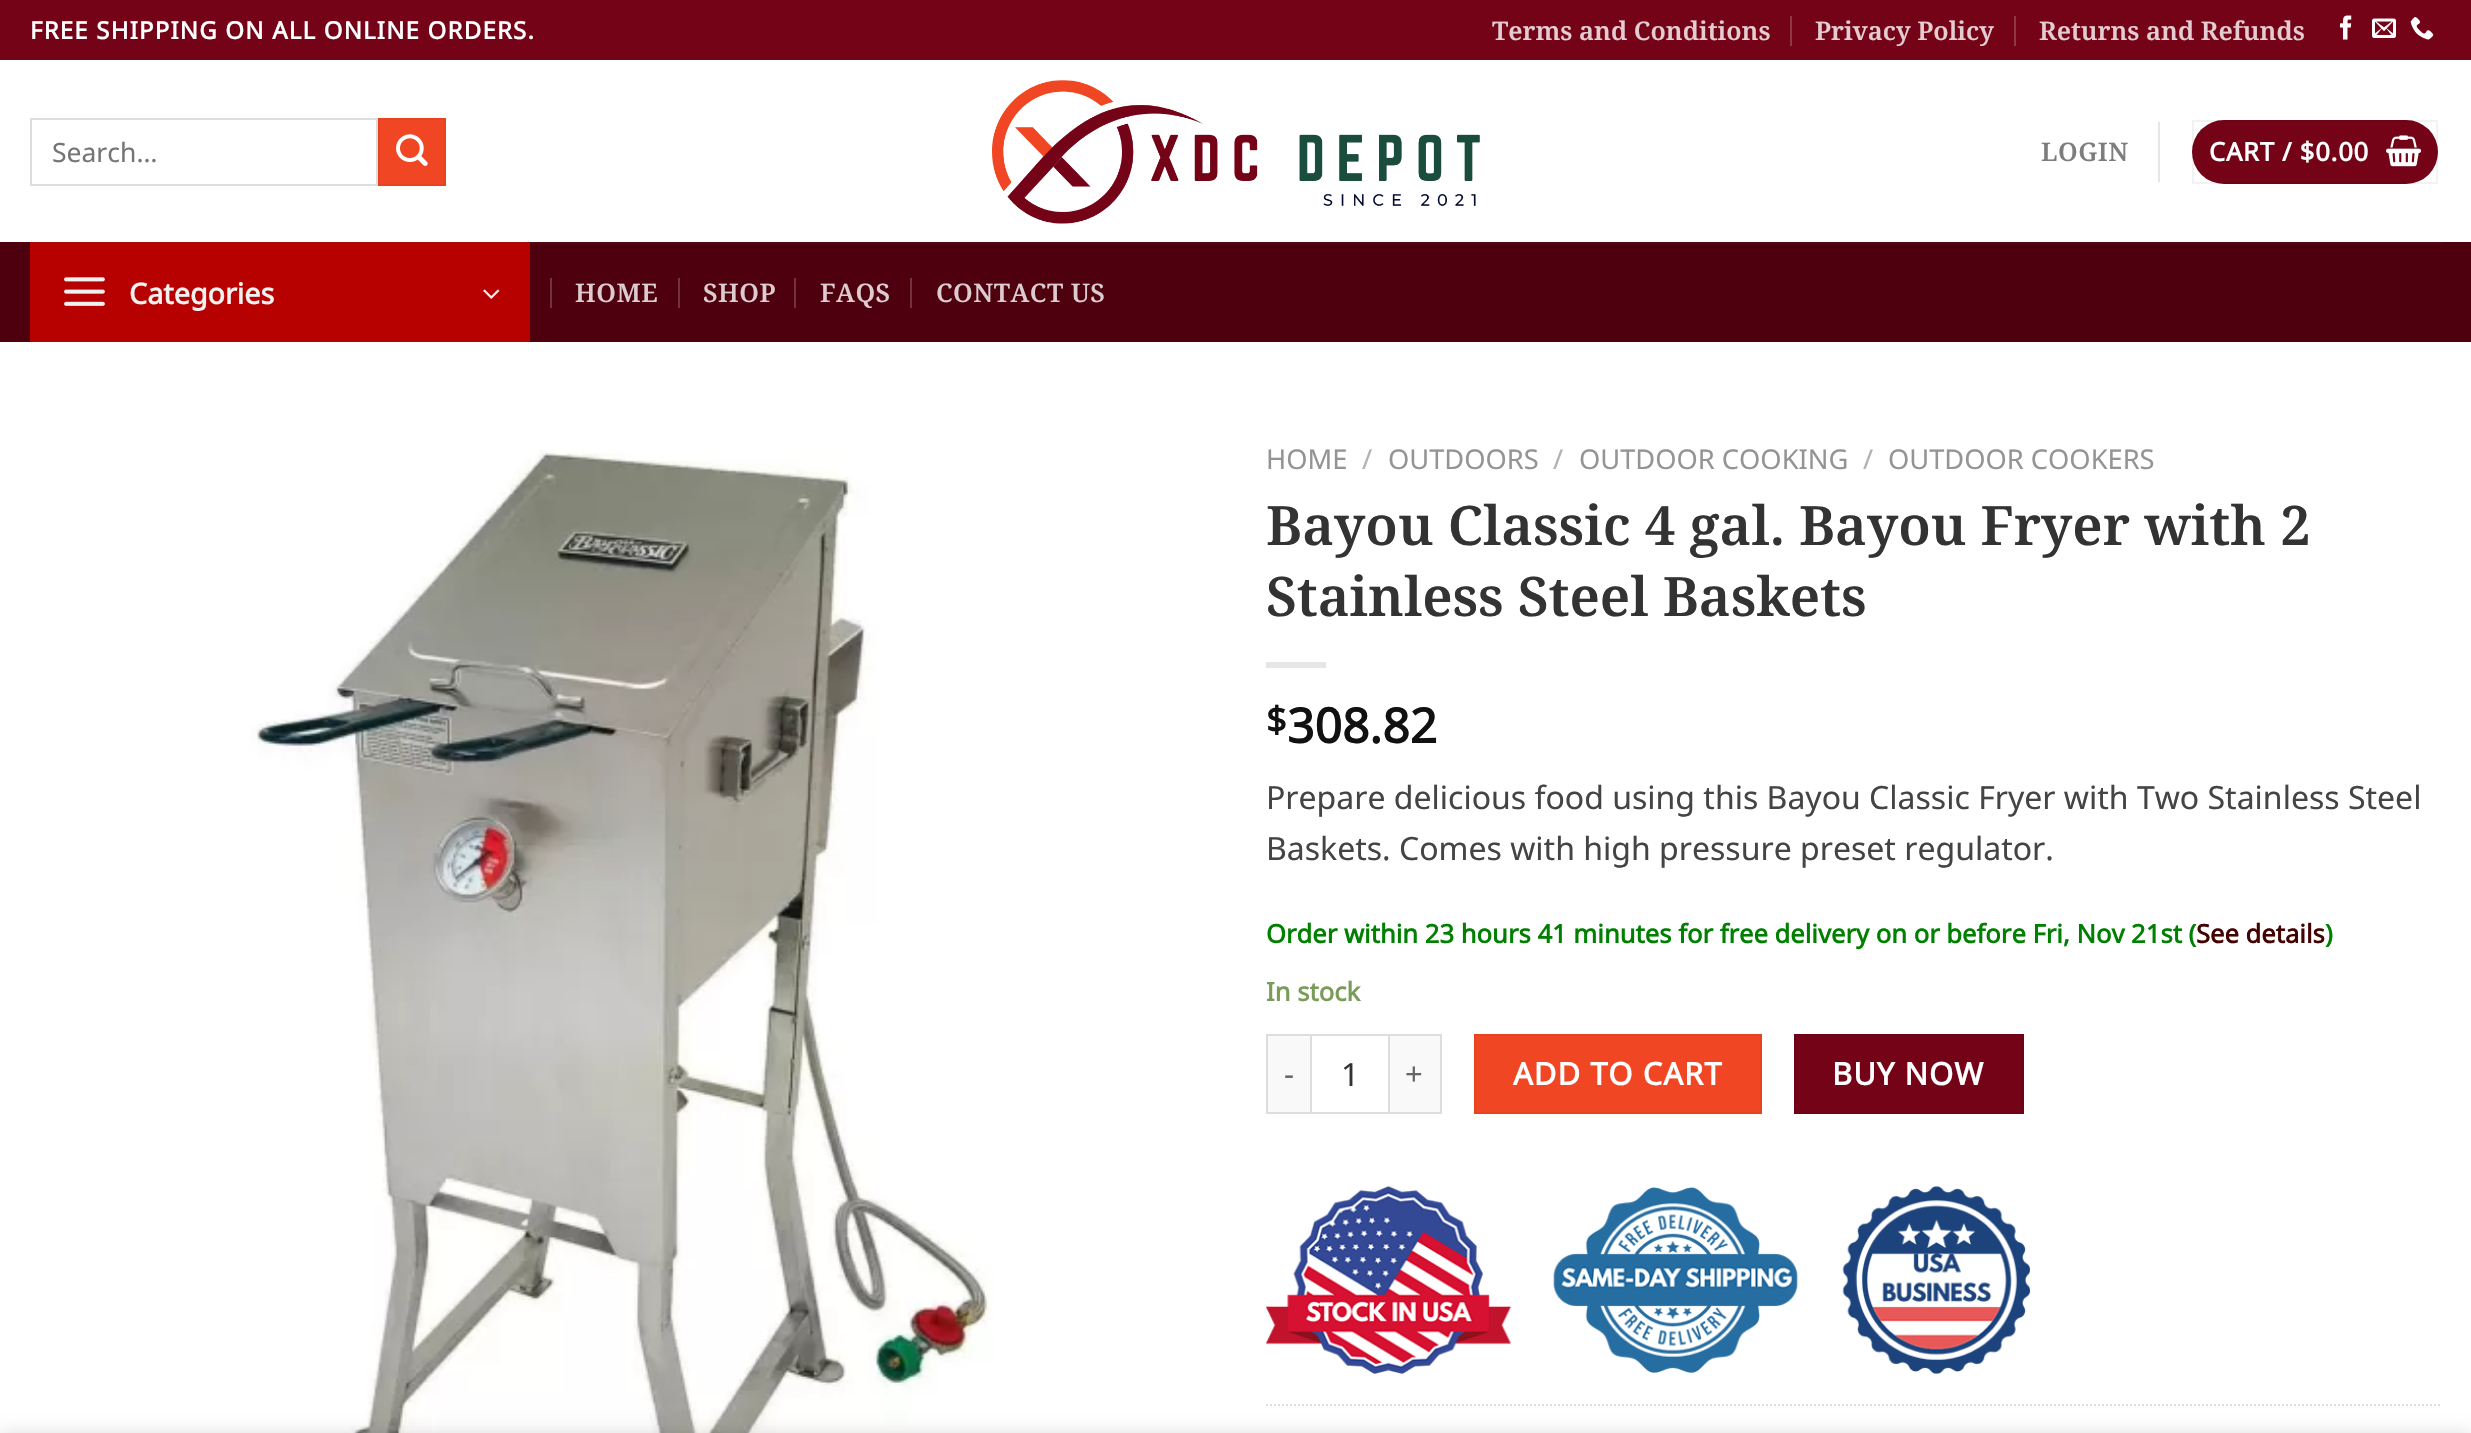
void draw(SkCanvas* canvas) {
  SkPaint paint;
  paint.setAntiAlias(true);
  auto face = [&](const char* family, int weight, float size, bool italic = false) {
    SkFontStyle style(weight, SkFontStyle::kNormal_Width,
      italic ? SkFontStyle::kItalic_Slant : SkFontStyle::kUpright_Slant);
    SkFont result(fontMgr->matchFamilyStyle(family, style), size);
    result.setSubpixel(true);
    return result;
  };
  auto writeSpaced = [&](const char* s, float x, float y, const SkFont& font, const SkPaint& ink, float letter, float word) {
    std::vector<SkGlyphID> glyphs(font.countText(s, strlen(s), SkTextEncoding::kUTF8));
    std::vector<float> xs(glyphs.size());
    font.textToGlyphs(s, strlen(s), SkTextEncoding::kUTF8, glyphs);
    font.getXPos(glyphs, xs, x);
    float extra = 0;
    for (size_t i = 0; i < glyphs.size(); i++) {
      xs[i] += extra;
      extra += letter + word * (glyphs[i] == font.unicharToGlyph(' '));
    }
    canvas->drawTextBlob(SkTextBlob::MakeFromPosHGlyphs(glyphs, xs, y, font), 0, 0, ink);
  };
  auto paste = [&](const char* path, float x, float y, float w, float h) {
    auto image = SkImages::DeferredFromEncodedData(SkData::MakeFromFileName(path));
    canvas->drawImageRect(image, SkRect::MakeXYWH(x, y, w, h), SkSamplingOptions());
  };
  auto shape = [&](const char* data, bool evenOdd = false) {
    SkPath result = *SkParsePath::FromSVGString(data);
    if (evenOdd) result.setFillType(SkPathFillType::kEvenOdd);
    return result;
  };
  canvas->clear(0xffffffff);
  {
    const struct { float x, y, w, h; SkColor color; } items[] = {
      {0, 0, 2471, 60, 0xff740318},
      {1790, 16, 2, 30, 0xff903546},
      {2014, 16, 2, 30, 0xff903546},
    };
    for (auto [x, y, w, h, color] : items) {
      paint.setColor(color);
      canvas->drawRect(SkRect::MakeXYWH(x, y, w, h), paint);
    }
  }
  paste("img/1.png", 2340, 15, 12, 25);
  paste("img/2.png", 2372, 18, 24, 20);
  paste("img/3.png", 2410, 17, 24, 23);
  paint.setStroke(true);
  paint.setStrokeWidth(2);
  paint.setColor(0xffdddddd);
  canvas->drawRect(SkRect::MakeXYWH(31, 119, 346, 66), paint);
  paint.setStroke(false);
  paint.setColor(0xfff14624);
  canvas->drawRect(SkRect::MakeXYWH(379, 119, 66, 66), paint);
  paint.setStroke(true);
  paint.setColor(0xffe54322);
  canvas->drawRect(SkRect::MakeXYWH(379, 119, 66, 66), paint);
  paste("img/4.png", 396, 134, 32, 32);
  paste("img/5.png", 992, 80, 488, 144);
  paint.setStroke(false);
  paint.setColor(0xffe6e6e6);
  canvas->drawRect(SkRect::MakeXYWH(2158, 122, 2, 60), paint);
  paint.setColor(0xff740318);
  canvas->drawRoundRect(SkRect::MakeXYWH(2192, 120, 246, 64), 32, 32, paint);
  paint.setStroke(true);
  paint.setColor(0x0d000000);
  canvas->drawRect(SkRect::MakeXYWH(2193, 121, 244, 62), paint);
  paste("img/6.png", 2386, 135, 36, 32);
  paint.setStroke(false);
  {
    const struct { float x, y, w, h; SkColor color; } items[] = {
      {0, 242, 2471, 100, 0xff4f000f},
      {530, 242, 1912, 2, 0xff4e0714},
      {30, 244, 500, 98, 0xffb70000},
      {30, 242, 500, 2, 0xffac0707},
    };
    for (auto [x, y, w, h, color] : items) {
      paint.setColor(color);
      canvas->drawRect(SkRect::MakeXYWH(x, y, w, h), paint);
    }
  }
  paste("img/7.png", 64, 277, 41, 29);
  paste("img/8.png", 483, 289, 17, 10);
  {
    const struct { float x, y, w, h; SkColor color; } items[] = {
      {550, 278, 2, 30, 0xff72333f},
      {678, 278, 2, 30, 0xff72333f},
      {794, 278, 2, 30, 0xff72333f},
      {910, 278, 2, 30, 0xff72333f},
    };
    for (auto [x, y, w, h, color] : items) {
      paint.setColor(color);
      canvas->drawRect(SkRect::MakeXYWH(x, y, w, h), paint);
    }
  }
  paste("img/9.png", 250, 449, 744, 984);
  {
    const struct { float x, y, w, h; SkColor color; } items[] = {
      {1266, 662, 60, 6, 0xffe6e6e6},
      {1268, 1036, 42, 76, 0xfff9f9f9},
      {1266, 1034, 44, 2, 0xffdddddd},
      {1266, 1112, 44, 2, 0xffdddddd},
      {1266, 1034, 2, 80, 0xffdddddd},
    };
    for (auto [x, y, w, h, color] : items) {
      paint.setColor(color);
      canvas->drawRect(SkRect::MakeXYWH(x, y, w, h), paint);
    }
  }
  paint.setStroke(true);
  canvas->drawRect(SkRect::MakeXYWH(1311, 1035, 78, 78), paint);
  paint.setStroke(false);
  {
    const struct { float x, y, w, h; SkColor color; } items[] = {
      {1390, 1036, 50, 76, 0xfff9f9f9},
      {1390, 1034, 52, 2, 0xffdddddd},
      {1440, 1034, 2, 80, 0xffdddddd},
      {1390, 1112, 52, 2, 0xffdddddd},
    };
    for (auto [x, y, w, h, color] : items) {
      paint.setColor(color);
      canvas->drawRect(SkRect::MakeXYWH(x, y, w, h), paint);
    }
  }
  paint.setColor(0xfff14624);
  canvas->drawRect(SkRect::MakeXYWH(1475, 1035, 286, 78), paint);
  paint.setStroke(true);
  paint.setColor(0xffe54322);
  canvas->drawRect(SkRect::MakeXYWH(1475, 1035, 286, 78), paint);
  paint.setStroke(false);
  paint.setColor(0xff740318);
  canvas->drawRect(SkRect::MakeXYWH(1795, 1035, 228, 78), paint);
  paint.setStroke(true);
  paint.setColor(0xff6e0317);
  canvas->drawRect(SkRect::MakeXYWH(1795, 1035, 228, 78), paint);
  paste("img/10.png", 1266, 1186, 764, 188);
  paint.setColor(0xffdddddd);
  paint.setPathEffect(SkDashPathEffect::Make({{2, 2}}, 0));
  canvas->drawPath(shape("M1266 1405H2442"), paint);
  paint.setPathEffect(nullptr);
  paint.setStroke(false);
  paint.setColor(0x24000000);
  paint.setMaskFilter(SkMaskFilter::MakeBlur(kNormal_SkBlurStyle, 9));
  canvas->drawRect(SkRect::MakeXYWH(0, 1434, 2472, 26), paint);
  paint.setMaskFilter(nullptr);
  auto f0 = face("Noto Sans", 700, 24);
  paint.setColor(0xffffffff);
  writeSpaced("FREE SHIPPING ON ALL ONLINE ORDERS.", 30, 39, f0, paint, 1.2f, 0);
  auto f1 = face("Noto Serif", 600, 25.6f);
  paint.setColor(0xffe3cdd1);
  {
    const struct { const char* s; float x, y; } items[] = {
      {"Terms and Conditions", 1492, 40},
      {"Privacy Policy", 1815, 40},
      {"Returns and Refunds", 2039, 40},
    };
    for (auto [s, x, y] : items) {
      canvas->drawString(s, x, y, f1, paint);
    }
  }
  auto f2 = face("Noto Sans", 400, 26.5f);
  paint.setColor(0xff757575);
  canvas->drawString("Search…", 52, 162, f2, paint);
  paint.setColor(0xff7d7d7d);
  writeSpaced("LOGIN", 2041, 161, f1, paint, 0.5f, 0);
  auto f3 = face("Noto Sans", 700, 25.6f);
  paint.setColor(0xffffffff);
  writeSpaced("CART / $0.00", 2209, 161, f3, paint, 0.75f, 0);
  auto f4 = face("Noto Sans", 700, 28.75f);
  paint.setColor(0xfff1f1f1);
  canvas->drawString("Categories", 129, 304, f4, paint);
  paint.setColor(0xffdccccf);
  {
    const struct { const char* s; float x, y; } items[] = {
      {"HOME", 575, 302},
      {"SHOP", 703, 302},
      {"FAQS", 820, 302},
      {"CONTACT US", 936, 302},
    };
    for (auto [s, x, y] : items) {
      writeSpaced(s, x, y, f1, paint, 0.5f, 0);
    }
  }
  auto f5 = face("Noto Sans", 400, 27.25f);
  paint.setColor(0xff949494);
  canvas->drawString("HOME", 1266, 469, f5, paint);
  paint.setColor(0xffb2b2b2);
  canvas->drawString("/", 1362, 469, f5, paint);
  paint.setColor(0xff949494);
  canvas->drawString("OUTDOORS", 1388, 469, f5, paint);
  paint.setColor(0xffb2b2b2);
  canvas->drawString("/", 1553, 469, f5, paint);
  paint.setColor(0xff949494);
  canvas->drawString("OUTDOOR COOKING", 1579, 469, f5, paint);
  paint.setColor(0xffb2b2b2);
  canvas->drawString("/", 1863, 469, f5, paint);
  paint.setColor(0xff949494);
  canvas->drawString("OUTDOOR COOKERS", 1888, 469, f5, paint);
  auto f6 = face("Noto Serif", 600, 54.4f);
  paint.setColor(0xff333333);
  canvas->drawString("Bayou Classic 4 gal. Bayou Fryer with 2", 1266, 545, f6, paint);
  canvas->drawString("Stainless Steel Baskets", 1266, 616, f6, paint);
  auto f7 = face("Noto Sans", 700, 36);
  paint.setColor(0xff111111);
  canvas->drawString("$", 1266, 733, f7, paint);
  auto f8 = face("Noto Sans", 700, 48);
  canvas->drawString("308.82", 1287, 743, f8, paint);
  auto f9 = face("Noto Sans", 400, 32);
  paint.setColor(0xff444444);
  canvas->drawString("Prepare delicious food using this Bayou Classic Fryer with Two Stainless Steel", 1266, 809, f9, paint);
  canvas->drawString("Baskets. Comes with high pressure preset regulator.", 1266, 860, f9, paint);
  paint.setColor(0xff008000);
  canvas->drawString("Order within 23 hours 41 minutes for free delivery on or before Fri, Nov 21st (", 1266, 943, f3, paint);
  paint.setColor(0xff440202);
  canvas->drawString("See details", 2196, 943, f3, paint);
  paint.setColor(0xff008000);
  canvas->drawString(")", 2325, 943, f3, paint);
  paint.setColor(0xff7a9c59);
  canvas->drawString("In stock", 1266, 1001, f3, paint);
  auto f10 = face("Noto Sans", 400, 31);
  paint.setColor(0xff666666);
  writeSpaced("-", 1284, 1085, f10, paint, 1, 0);
  paint.setColor(0xff333333);
  canvas->drawString("1", 1341, 1086, f9, paint);
  paint.setColor(0xff666666);
  writeSpaced("+", 1405, 1085, f10, paint, 1, 0);
  auto f11 = face("Noto Sans", 700, 31);
  paint.setColor(0xffffffff);
  writeSpaced("ADD TO CART", 1513, 1085, f11, paint, 1, 0);
  writeSpaced("BUY NOW", 1832, 1085, f11, paint, 1, 0);
}
